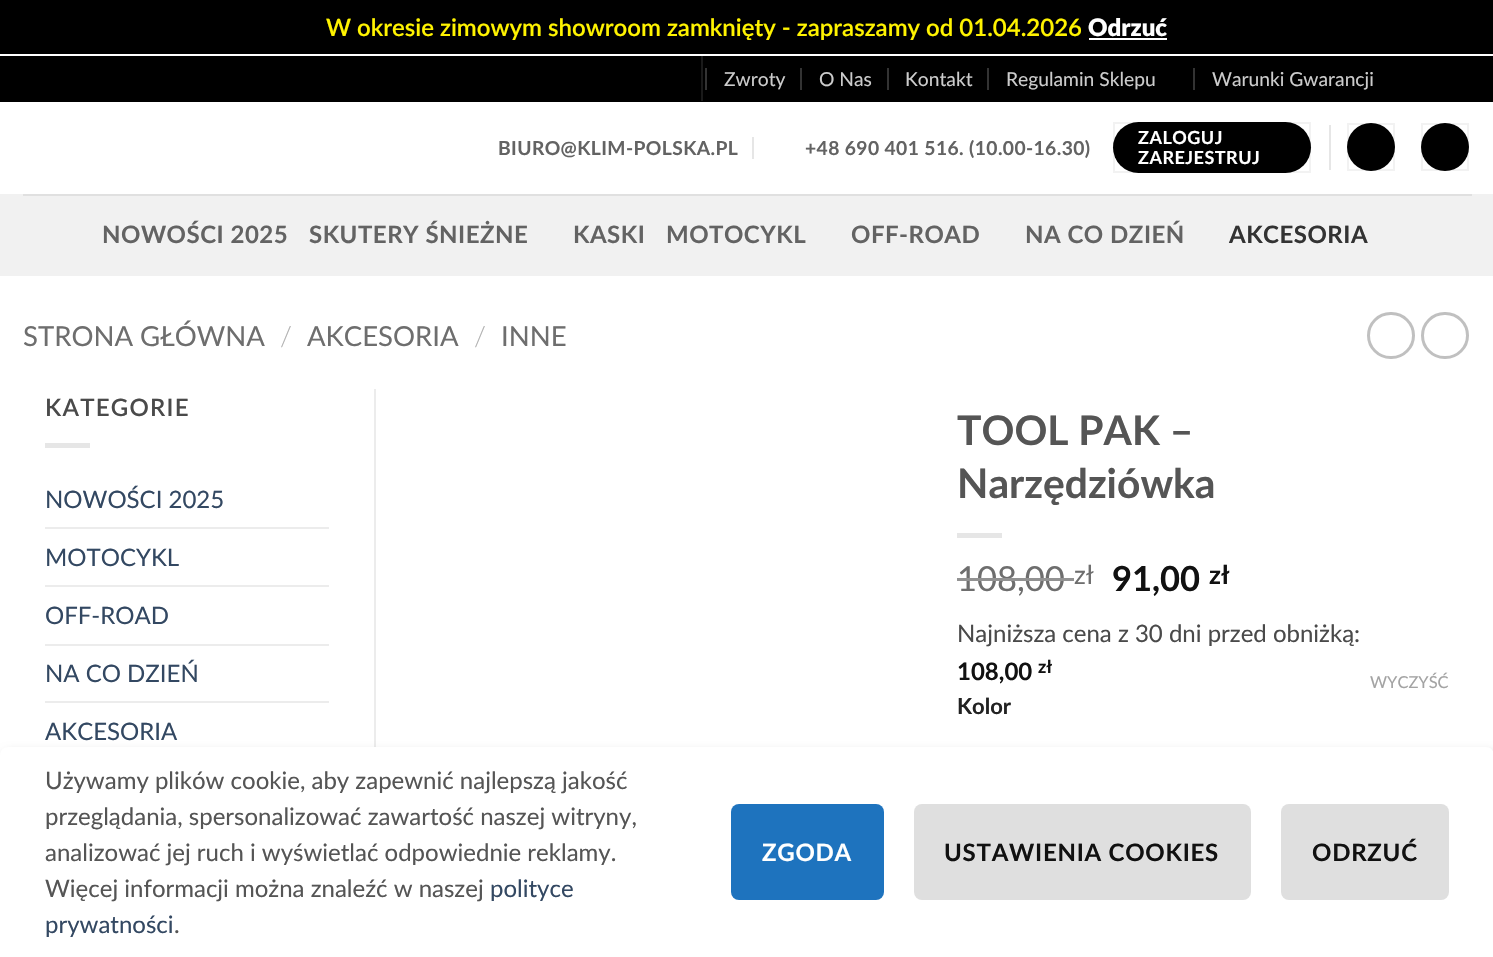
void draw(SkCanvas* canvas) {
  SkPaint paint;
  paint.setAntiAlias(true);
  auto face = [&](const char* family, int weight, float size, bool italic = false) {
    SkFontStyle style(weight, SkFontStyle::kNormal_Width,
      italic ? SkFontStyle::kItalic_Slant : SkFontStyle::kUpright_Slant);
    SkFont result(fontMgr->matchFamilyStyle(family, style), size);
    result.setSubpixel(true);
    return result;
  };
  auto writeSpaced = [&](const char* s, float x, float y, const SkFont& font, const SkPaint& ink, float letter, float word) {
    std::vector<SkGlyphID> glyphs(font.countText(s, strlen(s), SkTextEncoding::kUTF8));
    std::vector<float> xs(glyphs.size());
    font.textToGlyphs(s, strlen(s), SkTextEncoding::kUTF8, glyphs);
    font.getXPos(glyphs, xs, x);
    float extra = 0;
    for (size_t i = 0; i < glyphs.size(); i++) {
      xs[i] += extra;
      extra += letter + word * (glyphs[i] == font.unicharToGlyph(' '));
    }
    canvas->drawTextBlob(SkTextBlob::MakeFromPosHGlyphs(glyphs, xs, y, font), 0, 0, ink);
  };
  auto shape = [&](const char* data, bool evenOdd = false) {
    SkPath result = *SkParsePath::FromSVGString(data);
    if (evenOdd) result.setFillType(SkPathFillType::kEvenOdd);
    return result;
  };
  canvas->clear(0xff000000);
  {
    const struct { float x, y, w, h; SkColor color; } items[] = {
      {0, 54, 1493, 2, 0xffffffff},
      {1089, 38, 78, 2, 0xffffffff},
      {0, 102, 1493, 653, 0xffffffff},
      {701, 56, 2, 45, 0xff1a1a1a},
      {705, 68, 2, 22, 0xff333333},
      {800, 68, 2, 22, 0xff333333},
      {887, 68, 2, 22, 0xff333333},
      {987, 68, 2, 22, 0xff333333},
      {1193, 68, 2, 22, 0xff333333},
      {752, 137, 2, 22, 0xffe6e6e6},
    };
    for (auto [x, y, w, h, color] : items) {
      paint.setColor(color);
      canvas->drawRect(SkRect::MakeXYWH(x, y, w, h), paint);
    }
  }
  paint.setColor(0xff000000);
  canvas->drawRoundRect(SkRect::MakeXYWH(1113, 122, 198, 51), 25.5f, 25.5f, paint);
  paint.setStroke(true);
  paint.setStrokeWidth(2);
  paint.setColor(0x0d000000);
  canvas->drawRect(SkRect::MakeXYWH(1114, 123, 196, 49), paint);
  paint.setStroke(false);
  paint.setColor(0xffe6e6e6);
  canvas->drawRect(SkRect::MakeXYWH(1329, 125, 2, 45), paint);
  paint.setColor(0xff000000);
  canvas->drawCircle(1371, 147, 24, paint);
  paint.setStroke(true);
  paint.setColor(0x0d000000);
  canvas->drawRect(SkRect::MakeXYWH(1348, 124, 46, 46), paint);
  paint.setStroke(false);
  paint.setColor(0xff000000);
  canvas->drawCircle(1445, 147, 24, paint);
  paint.setStroke(true);
  paint.setColor(0x0d000000);
  canvas->drawRect(SkRect::MakeXYWH(1422, 124, 46, 46), paint);
  paint.setStroke(false);
  paint.setColor(0xfff1f1f1);
  canvas->drawRect(SkRect::MakeXYWH(0, 194, 1493, 82), paint);
  paint.setColor(0xffe0e0e0);
  canvas->drawRect(SkRect::MakeXYWH(23, 194, 1449, 2), paint);
  paint.setStroke(true);
  paint.setStrokeWidth(3);
  paint.setColor(0xffc0c0c0);
  canvas->drawRoundRect(SkRect::MakeXYWH(1368.5f, 313.5f, 45, 44), 22, 22, paint);
  canvas->drawRoundRect(SkRect::MakeXYWH(1422.5f, 313.5f, 45, 44), 22, 22, paint);
  paint.setStroke(false);
  {
    const struct { float x, y, w, h; SkColor color; } items[] = {
      {45, 443, 45, 5, 0xffe6e6e6},
      {45, 527, 284, 2, 0xffececec},
      {45, 585, 284, 2, 0xffececec},
      {45, 644, 284, 2, 0xffececec},
      {45, 701, 284, 2, 0xffececec},
      {374, 389, 2, 358, 0xffececec},
      {957, 533, 45, 5, 0xffe6e6e6},
    };
    for (auto [x, y, w, h, color] : items) {
      paint.setColor(color);
      canvas->drawRect(SkRect::MakeXYWH(x, y, w, h), paint);
    }
  }
  paint.setColor(0x33000000);
  paint.setMaskFilter(SkMaskFilter::MakeBlur(kNormal_SkBlurStyle, 5));
  canvas->drawRoundRect(SkRect::MakeXYWH(3, 752, 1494, 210), 8, 8, paint);
  paint.setMaskFilter(nullptr);
  paint.setColor(0xffffffff);
  canvas->drawPath(shape("M8 747H1486C1490.5 747 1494 750.5 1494 755V957H0V755C0 750.5 3.5 747 8 747Z"), paint);
  paint.setColor(0xff1e73be);
  canvas->drawRoundRect(SkRect::MakeXYWH(731, 804, 153, 96), 8, 8, paint);
  paint.setColor(0xffdfdfdf);
  canvas->drawRoundRect(SkRect::MakeXYWH(914, 804, 337, 96), 8, 8, paint);
  canvas->drawRoundRect(SkRect::MakeXYWH(1281, 804, 168, 96), 8, 8, paint);
  auto f0 = face("Lato", 600, 24);
  paint.setColor(0xfffff300);
  canvas->drawString("W okresie zimowym showroom zamknięty - zapraszamy od 01.04.2026", 326, 36, f0, paint);
  auto f1 = face("Lato", 800, 24);
  paint.setColor(0xffffffff);
  canvas->drawString("Odrzuć", 1088, 36, f1, paint);
  auto f2 = face("Lato", 400, 19.25f);
  paint.setColor(0xffcccccc);
  {
    const struct { const char* s; float x, y; } items[] = {
      {"Zwroty", 724, 86},
      {"O Nas", 819, 86},
      {"Kontakt", 905, 86},
      {"Regulamin Sklepu", 1006, 86},
      {"Warunki Gwarancji", 1212, 86},
    };
    for (auto [s, x, y] : items) {
      canvas->drawString(s, x, y, f2, paint);
    }
  }
  auto f3 = face("Lato", 700, 19.25f);
  paint.setColor(0xff636363);
  writeSpaced("BIURO@KLIM-POLSKA.PL", 498, 155, f3, paint, 0.4f, 0);
  writeSpaced("+48 690 401 516. (10.00-16.30)", 805, 155, f3, paint, 0.4f, 0);
  auto f4 = face("Lato", 700, 18);
  paint.setColor(0xffffffff);
  writeSpaced("ZALOGUJ", 1138, 144, f4, paint, 0.5f, 0);
  writeSpaced("ZAREJESTRUJ", 1138, 164, f4, paint, 0.5f, 0);
  auto f5 = face("Lato", 700, 24);
  paint.setColor(0xff636363);
  {
    const struct { const char* s; float x, y; } items[] = {
      {"NOWOŚCI 2025", 102, 243},
      {"SKUTERY ŚNIEŻNE", 309, 243},
      {"KASKI", 573, 243},
      {"MOTOCYKL", 666, 243},
      {"OFF-ROAD", 851, 243},
      {"NA CO DZIEŃ", 1025, 243},
    };
    for (auto [s, x, y] : items) {
      writeSpaced(s, x, y, f5, paint, 0.5f, 0);
    }
  }
  paint.setColor(0xff333333);
  writeSpaced("AKCESORIA", 1229, 243, f5, paint, 0.5f, 0);
  auto f6 = face("Lato", 400, 27.5f);
  paint.setColor(0xff6e6e6e);
  canvas->drawString("STRONA GŁÓWNA", 23, 346, f6, paint);
  auto f7 = face("Lato", 300, 27.5f);
  paint.setColor(0xffb2b2b2);
  canvas->drawString("/", 280, 346, f7, paint);
  paint.setColor(0xff6e6e6e);
  canvas->drawString("AKCESORIA", 307, 346, f6, paint);
  paint.setColor(0xffb2b2b2);
  canvas->drawString("/", 474, 346, f7, paint);
  paint.setColor(0xff6e6e6e);
  canvas->drawString("INNE", 501, 346, f6, paint);
  paint.setColor(0xff4a4a4a);
  writeSpaced("KATEGORIE", 45, 416, f0, paint, 1.25f, 0);
  auto f8 = face("Lato", 400, 24);
  paint.setColor(0xff334862);
  {
    const struct { const char* s; float x, y; } items[] = {
      {"NOWOŚCI 2025", 45, 508},
      {"MOTOCYKL", 45, 566},
      {"OFF-ROAD", 45, 624},
      {"NA CO DZIEŃ", 45, 682},
      {"AKCESORIA", 45, 740},
    };
    for (auto [s, x, y] : items) {
      canvas->drawString(s, x, y, f8, paint);
    }
  }
  auto f9 = face("Lato", 700, 40.75f);
  paint.setColor(0xff555555);
  canvas->drawString("TOOL PAK –", 957, 445, f9, paint);
  canvas->drawString("Narzędziówka", 957, 498, f9, paint);
  auto f10 = face("Lato", 400, 34.5f);
  paint.setColor(0xff6e6e6e);
  canvas->drawString("108,00", 957, 591, f10, paint);
  paint.setColor(0xff929292);
  canvas->drawRect(SkRect::MakeXYWH(957, 578, 117, 3), paint);
  auto f11 = face("Lato", 400, 26);
  paint.setColor(0xff6e6e6e);
  canvas->drawString("zł", 1074, 584, f11, paint);
  auto f12 = face("Lato", 700, 34.5f);
  paint.setColor(0xff111111);
  canvas->drawString("91,00", 1112, 591, f12, paint);
  auto f13 = face("Lato", 700, 26);
  canvas->drawString("zł", 1209, 584, f13, paint);
  paint.setColor(0xff4a4a4a);
  canvas->drawString("Najniższa cena z 30 dni przed obniżką:", 957, 642, f8, paint);
  paint.setColor(0xff111111);
  canvas->drawString("108,00", 957, 680, f5, paint);
  canvas->drawString("zł", 1038, 673, f4, paint);
  auto f14 = face("Lato", 400, 16.5f);
  paint.setColor(0xffa3a3a3);
  canvas->drawString("WYCZYŚĆ", 1370, 688, f14, paint);
  auto f15 = face("Lato", 700, 22);
  paint.setColor(0xff222222);
  canvas->drawString("Kolor", 957, 714, f15, paint);
  paint.setColor(0xff555555);
  {
    const struct { const char* s; float x, y; } items[] = {
      {"Używamy plików cookie, aby zapewnić najlepszą jakość", 45, 789},
      {"przeglądania, spersonalizować zawartość naszej witryny,", 45, 825},
      {"analizować jej ruch i wyświetlać odpowiednie reklamy.", 45, 861},
      {"Więcej informacji można znaleźć w naszej", 45, 897},
    };
    for (auto [s, x, y] : items) {
      canvas->drawString(s, x, y, f8, paint);
    }
  }
  paint.setColor(0xff334862);
  canvas->drawString("polityce", 490, 897, f8, paint);
  canvas->drawString("prywatności", 45, 933, f8, paint);
  paint.setColor(0xff555555);
  canvas->drawString(".", 174, 933, f8, paint);
  paint.setColor(0xffffffff);
  writeSpaced("ZGODA", 762, 861, f5, paint, 0.75f, 0);
  paint.setColor(0xff111111);
  writeSpaced("USTAWIENIA COOKIES", 944, 861, f5, paint, 0.75f, 0);
  writeSpaced("ODRZUĆ", 1312, 861, f5, paint, 0.75f, 0);
}
